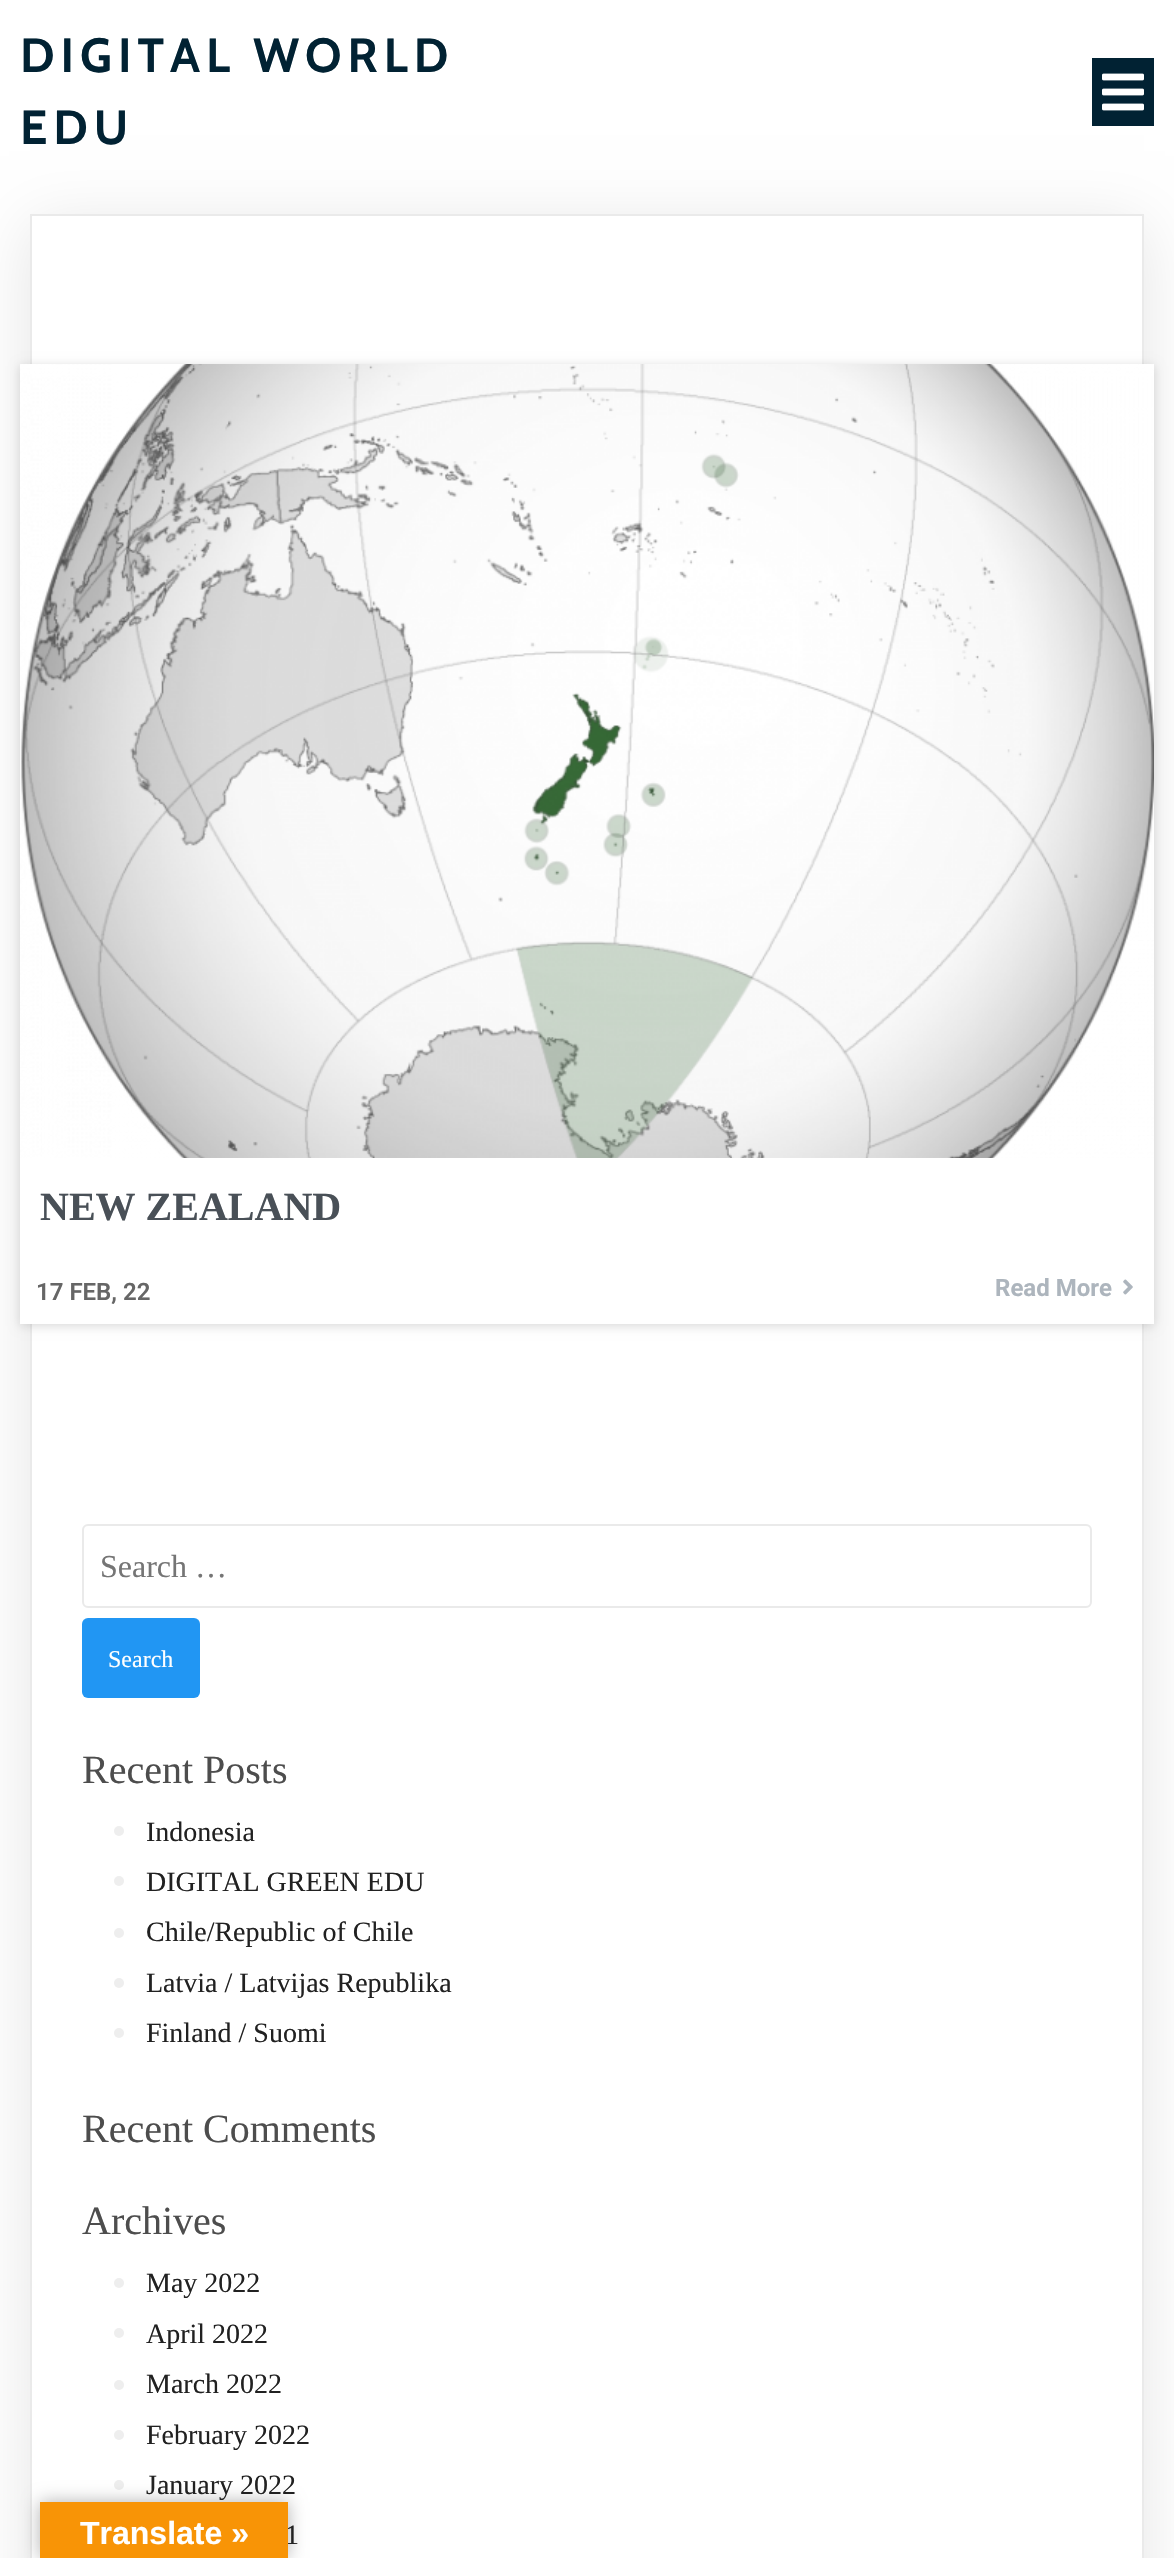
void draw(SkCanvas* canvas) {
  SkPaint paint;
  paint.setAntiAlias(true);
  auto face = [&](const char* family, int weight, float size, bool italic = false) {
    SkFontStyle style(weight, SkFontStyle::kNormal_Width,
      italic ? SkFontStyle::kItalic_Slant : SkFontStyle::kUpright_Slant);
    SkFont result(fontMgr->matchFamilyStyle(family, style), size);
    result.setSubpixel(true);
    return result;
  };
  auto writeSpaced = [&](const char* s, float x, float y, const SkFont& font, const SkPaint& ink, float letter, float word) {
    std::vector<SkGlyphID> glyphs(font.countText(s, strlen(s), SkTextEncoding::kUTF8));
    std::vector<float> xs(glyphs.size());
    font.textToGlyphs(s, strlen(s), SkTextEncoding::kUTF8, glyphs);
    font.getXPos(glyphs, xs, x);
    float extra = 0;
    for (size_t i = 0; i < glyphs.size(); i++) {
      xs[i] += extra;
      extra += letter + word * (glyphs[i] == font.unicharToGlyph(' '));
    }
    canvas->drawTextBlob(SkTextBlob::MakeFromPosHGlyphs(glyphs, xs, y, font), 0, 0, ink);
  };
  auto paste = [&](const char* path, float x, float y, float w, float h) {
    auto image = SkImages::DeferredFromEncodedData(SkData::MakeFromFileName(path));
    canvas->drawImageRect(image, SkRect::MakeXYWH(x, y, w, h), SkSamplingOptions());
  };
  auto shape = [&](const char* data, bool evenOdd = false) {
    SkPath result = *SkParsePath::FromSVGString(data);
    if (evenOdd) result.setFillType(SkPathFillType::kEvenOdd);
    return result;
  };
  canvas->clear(0xffffffff);
  paint.setColor(0xff012233);
  canvas->drawRect(SkRect::MakeXYWH(1092, 58, 62, 68), paint);
  paste("img/1.png", 1102, 73, 42, 38);
  canvas->save();
  canvas->clipPath(shape("M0 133H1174V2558H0ZM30 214H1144V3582H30Z", true), true);
  paint.setColor(0x1a000000);
  paint.setMaskFilter(SkMaskFilter::MakeBlur(kNormal_SkBlurStyle, 30));
  canvas->drawRect(SkRect::MakeXYWH(30, 224, 1114, 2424), paint);
  paint.setMaskFilter(nullptr);
  canvas->restore();
  paint.setStroke(true);
  paint.setStrokeWidth(2);
  paint.setColor(0xffeaeaea);
  canvas->drawRect(SkRect::MakeXYWH(31, 215, 1112, 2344), paint);
  paint.setStroke(false);
  paint.setColor(0x26000000);
  paint.setMaskFilter(SkMaskFilter::MakeBlur(kNormal_SkBlurStyle, 5));
  canvas->drawRect(SkRect::MakeXYWH(20, 366, 1134, 960), paint);
  paint.setMaskFilter(nullptr);
  paint.setColor(0xffffffff);
  canvas->drawRect(SkRect::MakeXYWH(20, 364, 1134, 960), paint);
  paste("img/2.png", 20, 364, 1134, 794);
  paste("img/3.png", 1123, 1279, 10, 16);
  paint.setStroke(true);
  paint.setColor(0xffeaeaea);
  canvas->drawRoundRect(SkRect::MakeXYWH(83, 1525, 1008, 82), 5, 5, paint);
  paint.setStroke(false);
  paint.setColor(0xff2196f3);
  canvas->drawRoundRect(SkRect::MakeXYWH(82, 1618, 118, 80), 6, 6, paint);
  paint.setColor(0xffeeeeee);
  canvas->drawCircle(119, 1831, 5, paint);
  canvas->drawCircle(119, 1881, 5, paint);
  canvas->drawCircle(119, 1933, 5, paint);
  canvas->drawCircle(119, 1983, 5, paint);
  canvas->drawCircle(119, 2033, 5, paint);
  canvas->drawCircle(119, 2283, 5, paint);
  canvas->drawCircle(119, 2333, 5, paint);
  canvas->drawCircle(119, 2385, 5, paint);
  canvas->drawCircle(119, 2435, 5, paint);
  canvas->drawCircle(119, 2485, 5, paint);
  paint.setColor(0x4d000000);
  paint.setMaskFilter(SkMaskFilter::MakeBlur(kNormal_SkBlurStyle, 9));
  canvas->drawRect(SkRect::MakeXYWH(40, 2502, 248, 56), paint);
  paint.setMaskFilter(nullptr);
  auto f0 = face("Cabin", 700, 48);
  paint.setColor(0xff012233);
  writeSpaced("DIGITAL WORLD", 20, 72, f0, paint, 6, 0);
  writeSpaced("EDU", 20, 144, f0, paint, 6, 0);
  auto f1 = face("Liberation Serif", 700, 40);
  paint.setColor(0xff495057);
  canvas->drawString("NEW ZEALAND", 40, 1220, f1, paint);
  auto f2 = face("Roboto", 600, 24);
  paint.setColor(0xff666666);
  canvas->drawString("17 FEB, 22", 36, 1300, f2, paint);
  auto f3 = face("Roboto", 700, 24);
  paint.setColor(0xffadb5bd);
  canvas->drawString("Read More", 995, 1296, f3, paint);
  auto f4 = face("Liberation Serif", 400, 32);
  paint.setColor(0xff757575);
  canvas->drawString("Search …", 100, 1577, f4, paint);
  auto f5 = face("Liberation Serif", 400, 24);
  paint.setColor(0xffffffff);
  canvas->drawString("Search", 108, 1667, f5, paint);
  auto f6 = face("Liberation Serif", 400, 40);
  paint.setColor(0xff4d4d4d);
  canvas->drawString("Recent Posts", 82, 1783, f6, paint);
  auto f7 = face("Liberation Serif", 400, 28);
  paint.setColor(0xff212121);
  {
    const struct { const char* s; float x, y; } items[] = {
      {"Indonesia", 146, 1841},
      {"DIGITAL GREEN EDU", 146, 1891},
      {"Chile/Republic of Chile", 146, 1941},
      {"Latvia / Latvijas Republika", 146, 1992},
      {"Finland / Suomi", 146, 2042},
    };
    for (auto [s, x, y] : items) {
      canvas->drawString(s, x, y, f7, paint);
    }
  }
  paint.setColor(0xff4d4d4d);
  canvas->drawString("Recent Comments", 82, 2142, f6, paint);
  canvas->drawString("Archives", 82, 2234, f6, paint);
  paint.setColor(0xff212121);
  {
    const struct { const char* s; float x, y; } items[] = {
      {"May 2022", 146, 2292},
      {"April 2022", 146, 2343},
      {"March 2022", 146, 2393},
      {"February 2022", 146, 2444},
      {"January 2022", 146, 2494},
      {"1", 285, 2544},
    };
    for (auto [s, x, y] : items) {
      canvas->drawString(s, x, y, f7, paint);
    }
  }
  paint.setColor(0xfff89406);
  canvas->drawRect(SkRect::MakeXYWH(40, 2502, 248, 56), paint);
  auto f8 = face("Liberation Sans", 700, 32);
  paint.setColor(0xffffffff);
  canvas->drawString("Translate »", 80, 2544, f8, paint);
}
